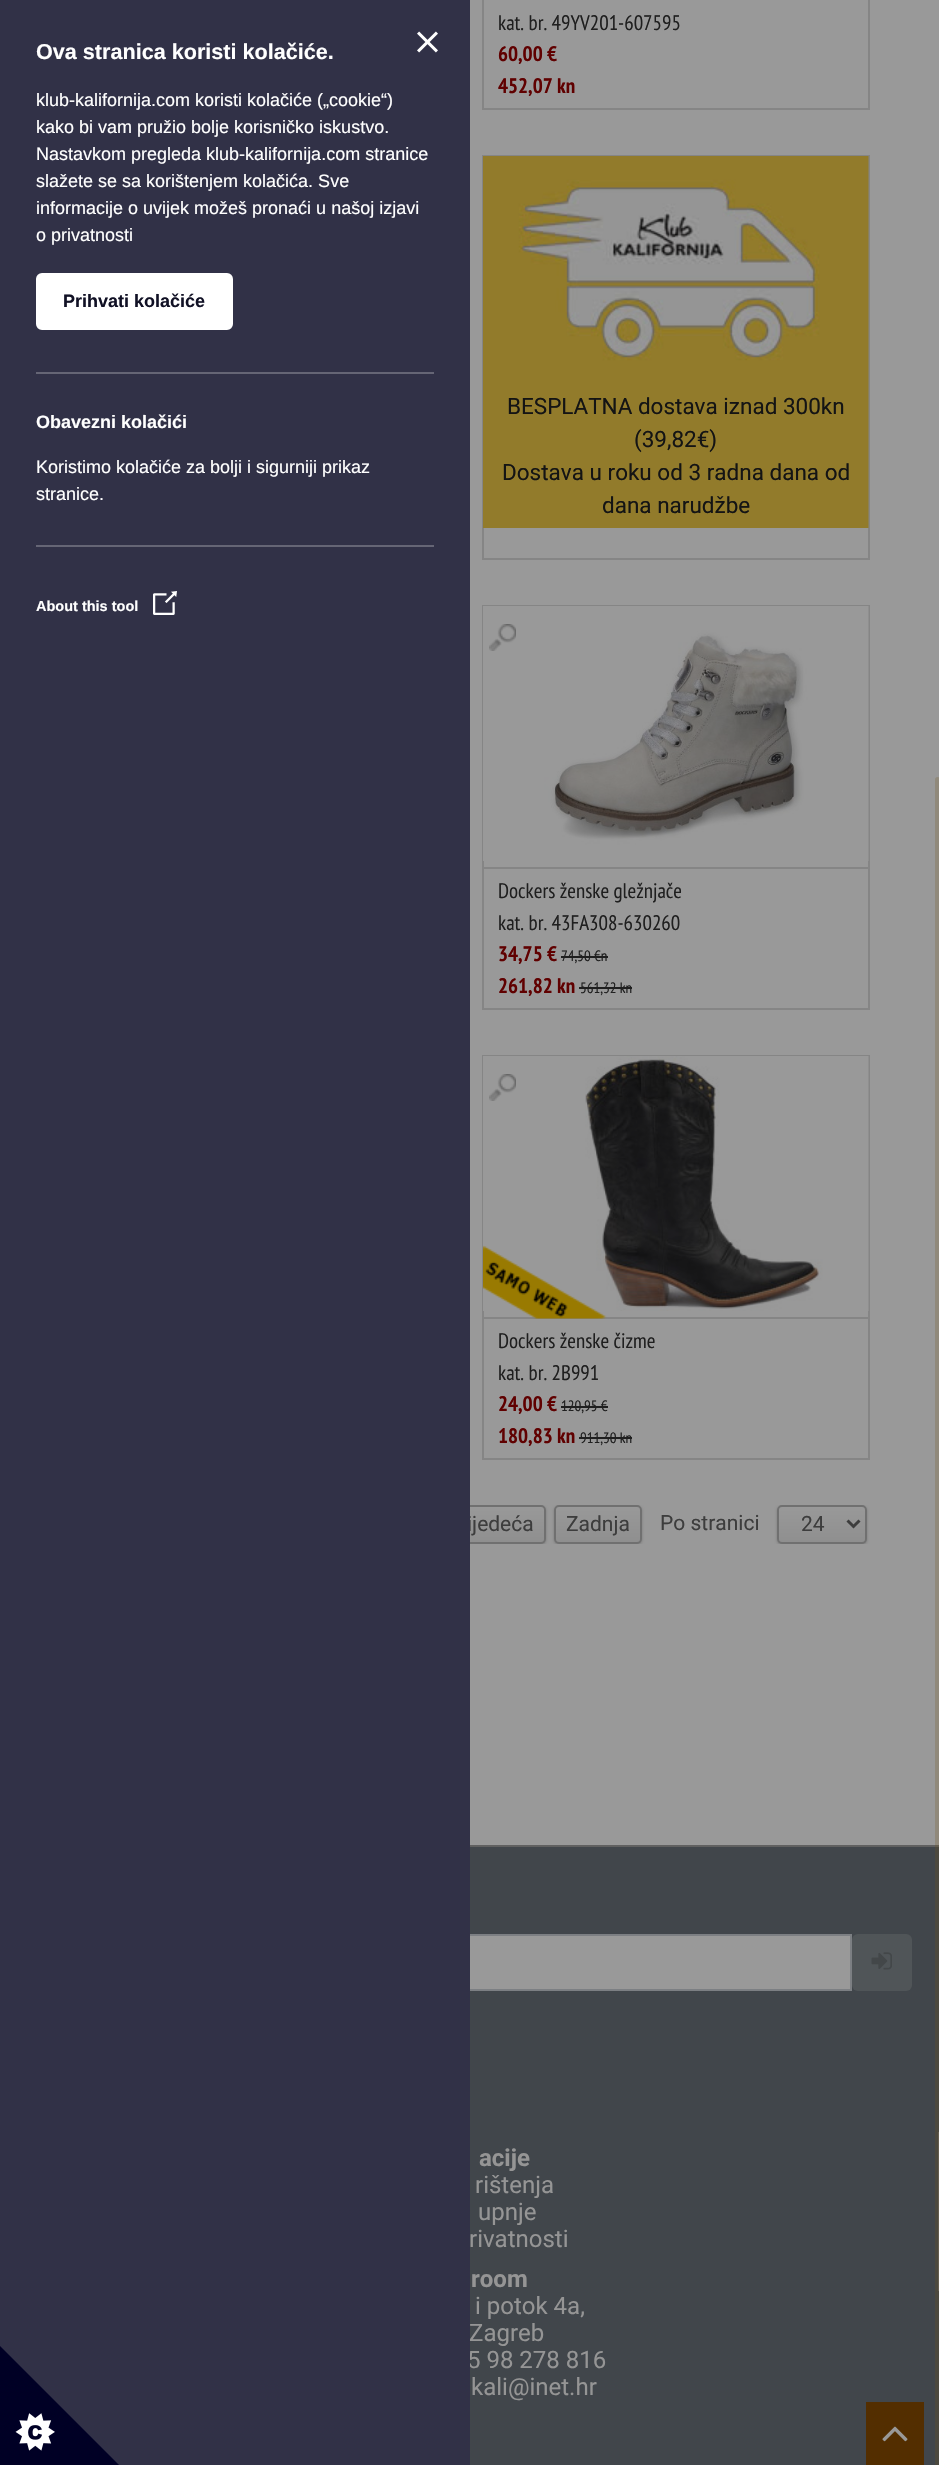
void draw(SkCanvas* canvas) {
  SkPaint paint;
  paint.setAntiAlias(true);
  auto face = [&](const char* family, int weight, float size, bool italic = false) {
    SkFontStyle style(weight, SkFontStyle::kNormal_Width,
      italic ? SkFontStyle::kItalic_Slant : SkFontStyle::kUpright_Slant);
    SkFont result(fontMgr->matchFamilyStyle(family, style), size);
    result.setSubpixel(true);
    return result;
  };
  auto paste = [&](const char* path, float x, float y, float w, float h) {
    auto image = SkImages::DeferredFromEncodedData(SkData::MakeFromFileName(path));
    canvas->drawImageRect(image, SkRect::MakeXYWH(x, y, w, h), SkSamplingOptions());
  };
  auto shape = [&](const char* data, bool evenOdd = false) {
    SkPath result = *SkParsePath::FromSVGString(data);
    if (evenOdd) result.setFillType(SkPathFillType::kEvenOdd);
    return result;
  };
  canvas->clear(0xff999999);
  paint.setStroke(true);
  paint.setStrokeWidth(2);
  paint.setColor(0xff858585);
  canvas->drawRect(SkRect::MakeXYWH(483, -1, 386, 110), paint);
  canvas->drawRect(SkRect::MakeXYWH(483, 156, 386, 403), paint);
  paste("img/4.png", 483, 156, 386, 372);
  canvas->drawRect(SkRect::MakeXYWH(483, 606, 386, 403), paint);
  paint.setStroke(false);
  canvas->drawRect(SkRect::MakeXYWH(483, 867, 386, 2), paint);
  paste("img/5.png", 483, 606, 386, 255);
  paste("img/6.png", 489, 624, 27, 27);
  paint.setColor(0xff1f1f1f);
  canvas->drawRect(SkRect::MakeXYWH(561, 956, 47, 2), paint);
  canvas->drawRect(SkRect::MakeXYWH(579, 987, 53, 2), paint);
  paint.setStroke(true);
  paint.setColor(0xff858585);
  canvas->drawRect(SkRect::MakeXYWH(483, 1056, 386, 403), paint);
  paint.setStroke(false);
  canvas->drawRect(SkRect::MakeXYWH(483, 1317, 386, 2), paint);
  paste("img/7.png", 483, 1056, 386, 255);
  paste("img/6.png", 489, 1074, 27, 27);
  paste("img/8.png", 483, 1245, 124, 74);
  paint.setColor(0xff1f1f1f);
  canvas->drawRect(SkRect::MakeXYWH(561, 1406, 47, 2), paint);
  canvas->drawRect(SkRect::MakeXYWH(579, 1437, 53, 2), paint);
  canvas->save();
  canvas->clipRect(SkRect::MakeXYWH(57, 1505, 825, 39));
  paint.setColor(0x33000000);
  paint.setMaskFilter(SkMaskFilter::MakeBlur(kNormal_SkBlurStyle, 1.5f));
  canvas->drawRoundRect(SkRect::MakeXYWH(438, 1506, 108, 39), 5, 5, paint);
  paint.setMaskFilter(nullptr);
  canvas->restore();
  canvas->save();
  canvas->clipPath(shape("M443 1505H541C544 1505 546 1507 546 1510V1539C546 1542 544 1544 541 1544H443C440 1544 438 1542 438 1539V1510C438 1507 440 1505 443 1505Z"), true);
  {
    const SkColor colors[] = {0xff999999, 0xff8f8f8f};
    const float stops[] = {0, 1};
    const SkPoint ends[] = {{492, 1506}, {492, 1542}};
    paint.setShader(SkGradientShader::MakeLinear(ends, colors, stops, 2, SkTileMode::kClamp));
    paint.setAlpha(255);
  }
  canvas->drawRect(SkRect::MakeXYWH(470, 1506, 76, 36), paint);
  canvas->restore();
  paint.setStroke(true);
  paint.setShader(nullptr);
  paint.setColor(0xff707070);
  canvas->drawRoundRect(SkRect::MakeXYWH(439, 1506, 106, 37), 4, 4, paint);
  canvas->save();
  canvas->clipRect(SkRect::MakeXYWH(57, 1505, 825, 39));
  paint.setStroke(false);
  paint.setColor(0x33000000);
  paint.setMaskFilter(SkMaskFilter::MakeBlur(kNormal_SkBlurStyle, 1.5f));
  canvas->drawRoundRect(SkRect::MakeXYWH(554, 1506, 88, 39), 5, 5, paint);
  paint.setMaskFilter(nullptr);
  canvas->restore();
  canvas->save();
  canvas->clipPath(shape("M559 1505H637C640 1505 642 1507 642 1510V1539C642 1542 640 1544 637 1544H559C556 1544 554 1542 554 1539V1510C554 1507 556 1505 559 1505Z"), true);
  {
    const SkColor colors[] = {0xff999999, 0xff8f8f8f};
    const float stops[] = {0, 1};
    const SkPoint ends[] = {{598, 1506}, {598, 1542}};
    paint.setShader(SkGradientShader::MakeLinear(ends, colors, stops, 2, SkTileMode::kClamp));
    paint.setAlpha(255);
  }
  canvas->drawRect(SkRect::MakeXYWH(554, 1506, 88, 36), paint);
  canvas->restore();
  paint.setStroke(true);
  paint.setShader(nullptr);
  paint.setColor(0xff707070);
  canvas->drawRoundRect(SkRect::MakeXYWH(555, 1506, 86, 37), 4, 4, paint);
  canvas->save();
  canvas->clipRect(SkRect::MakeXYWH(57, 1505, 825, 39));
  paint.setStroke(false);
  paint.setColor(0x33000000);
  paint.setMaskFilter(SkMaskFilter::MakeBlur(kNormal_SkBlurStyle, 1.5f));
  canvas->drawRoundRect(SkRect::MakeXYWH(777, 1506, 90, 39), 5, 5, paint);
  paint.setMaskFilter(nullptr);
  canvas->restore();
  canvas->save();
  canvas->clipPath(shape("M782 1505H862C865 1505 867 1507 867 1510V1539C867 1542 865 1544 862 1544H782C779 1544 777 1542 777 1539V1510C777 1507 779 1505 782 1505Z"), true);
  {
    const SkColor colors[] = {0xff999999, 0xff8f8f8f};
    const float stops[] = {0, 1};
    const SkPoint ends[] = {{822, 1506}, {822, 1542}};
    paint.setShader(SkGradientShader::MakeLinear(ends, colors, stops, 2, SkTileMode::kClamp));
    paint.setAlpha(255);
  }
  canvas->drawRect(SkRect::MakeXYWH(777, 1506, 90, 36), paint);
  canvas->restore();
  paint.setStroke(true);
  paint.setShader(nullptr);
  paint.setColor(0xff707070);
  canvas->drawRoundRect(SkRect::MakeXYWH(778, 1506, 88, 37), 4, 4, paint);
  paint.setStrokeWidth(3);
  paint.setColor(0xff3d3d3d);
  canvas->drawPath(shape("M847.5 1520.5L853.5 1526.5L859.5 1520.5"), paint);
  paint.setStroke(false);
  {
    const struct { float x, y, w, h; SkColor color; } items[] = {
      {470, 1847, 469, 618, 0xff41464b},
      {470, 1845, 469, 2, 0xff606060},
      {470, 1936, 380, 53, 0xff999999},
    };
    for (auto [x, y, w, h, color] : items) {
      paint.setColor(color);
      canvas->drawRect(SkRect::MakeXYWH(x, y, w, h), paint);
    }
  }
  paint.setStroke(true);
  paint.setStrokeWidth(2);
  paint.setColor(0xff7c7f83);
  canvas->drawRect(SkRect::MakeXYWH(28, 1935, 823, 55), paint);
  paint.setStroke(false);
  paint.setColor(0xff505558);
  canvas->drawRoundRect(SkRect::MakeXYWH(852, 1934, 60, 57), 6, 6, paint);
  paste("img/9.png", 871, 1952, 21, 18);
  paint.setColor(0xff606060);
  canvas->drawRect(SkRect::MakeXYWH(938, 2132, 1, 159), paint);
  paint.setColor(0x3b705114);
  canvas->drawRoundRect(SkRect::MakeXYWH(935, 777, 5, 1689), 2.5f, 2.5f, paint);
  paint.setColor(0xff532e00);
  canvas->drawRect(SkRect::MakeXYWH(866, 2402, 58, 63), paint);
  paste("img/10.png", 882, 2426, 26, 16);
  auto f0 = face("PT Sans Narrow", 400, 21);
  paint.setColor(0xff1f1f1f);
  canvas->drawString("kat. br. 49YV201-607595", 498, 30, f0, paint);
  auto f1 = face("PT Sans Narrow", 700, 21);
  paint.setColor(0xff600000);
  canvas->drawString("60,00 €", 498, 61, f1, paint);
  canvas->drawString("452,07 kn", 498, 93, f1, paint);
  auto f2 = face("Roboto", 400, 22.5f);
  paint.setColor(0xff141414);
  {
    const struct { const char* s; float x, y; } items[] = {
      {"BESPLATNA dostava iznad 300kn", 507, 414},
      {"(39,82€)", 634, 447},
      {"Dostava u roku od 3 radna dana od", 502, 480},
      {"dana narudžbe", 602, 513},
    };
    for (auto [s, x, y] : items) {
      canvas->drawString(s, x, y, f2, paint);
    }
  }
  paint.setColor(0xff1f1f1f);
  canvas->drawString("Dockers ženske gležnjače", 498, 898, f0, paint);
  canvas->drawString("kat. br. 43FA308-630260", 498, 930, f0, paint);
  paint.setColor(0xff600000);
  canvas->drawString("34,75 €", 498, 961, f1, paint);
  auto f3 = face("PT Sans Narrow", 400, 15);
  paint.setColor(0xff1f1f1f);
  canvas->drawString("74,50 €n", 561, 961, f3, paint);
  paint.setColor(0xff600000);
  canvas->drawString("261,82 kn", 498, 993, f1, paint);
  paint.setColor(0xff1f1f1f);
  canvas->drawString("561,32 kn", 580, 993, f3, paint);
  canvas->drawString("Dockers ženske čizme", 498, 1348, f0, paint);
  canvas->drawString("kat. br. 2B991", 498, 1380, f0, paint);
  paint.setColor(0xff600000);
  canvas->drawString("24,00 €", 498, 1411, f1, paint);
  paint.setColor(0xff1f1f1f);
  canvas->drawString("120,95 €", 561, 1411, f3, paint);
  paint.setColor(0xff600000);
  canvas->drawString("180,83 kn", 498, 1443, f1, paint);
  paint.setColor(0xff1f1f1f);
  canvas->drawString("911,30 kn", 580, 1443, f3, paint);
  auto f4 = face("Roboto", 400, 21);
  paint.setColor(0xff3d3d3d);
  {
    const struct { const char* s; float x, y; } items[] = {
      {"ijedeća", 467, 1531},
      {"Zadnja", 566, 1531},
      {"Po stranici", 660, 1530},
      {"24", 801, 1531},
    };
    for (auto [s, x, y] : items) {
      canvas->drawString(s, x, y, f4, paint);
    }
  }
  auto f5 = face("Roboto", 700, 24);
  paint.setColor(0xff959595);
  canvas->drawString("acije", 479, 2166, f5, paint);
  auto f6 = face("Roboto", 400, 24);
  {
    const struct { const char* s; float x, y; } items[] = {
      {"rištenja", 475, 2193},
      {"upnje", 478, 2220},
      {"rivatnosti", 469, 2247},
    };
    for (auto [s, x, y] : items) {
      canvas->drawString(s, x, y, f6, paint);
    }
  }
  canvas->drawString("room", 471, 2287, f5, paint);
  {
    const struct { const char* s; float x, y; } items[] = {
      {"i potok 4a,", 475, 2314},
      {"Zagreb", 469, 2341},
      {"5 98 278 816", 467, 2368},
    };
    for (auto [s, x, y] : items) {
      canvas->drawString(s, x, y, f6, paint);
    }
  }
  paint.setColor(0xff313147);
  canvas->drawRect(SkRect::MakeXYWH(0, 0, 470, 2465), paint);
  paste("img/3.png", 0, 2346, 119, 119);
  paste("img/2.png", 153, 591, 24, 24);
  paint.setColor(0xff656575);
  canvas->drawRect(SkRect::MakeXYWH(36, 545, 398, 2), paint);
  canvas->drawRect(SkRect::MakeXYWH(36, 372, 398, 2), paint);
  paste("img/1.png", 417, 31, 21, 22);
  auto f7 = face("Liberation Sans", 700, 14.5f);
  paint.setColor(0xffffffff);
  canvas->drawString("About this tool", 36, 611, f7, paint);
  auto f8 = face("Liberation Sans", 400, 18);
  canvas->drawString("stranice.", 36, 500, f8, paint);
  canvas->drawString("Koristimo kolačiće za bolji i sigurniji prikaz", 36, 473, f8, paint);
  auto f9 = face("Liberation Sans", 700, 18);
  canvas->drawString("Obavezni kolačići", 36, 428, f9, paint);
  canvas->drawRoundRect(SkRect::MakeXYWH(37.5f, 274.5f, 194, 54), 4.5f, 4.5f, paint);
  paint.setStroke(true);
  paint.setStrokeWidth(3);
  canvas->drawRoundRect(SkRect::MakeXYWH(37.5f, 274.5f, 194, 54), 4.5f, 4.5f, paint);
  paint.setStroke(false);
  paint.setColor(0xff111125);
  canvas->drawString("Prihvati kolačiće", 63, 307, f9, paint);
  paint.setColor(0xffffffff);
  {
    const struct { const char* s; float x, y; } items[] = {
      {"o privatnosti", 36, 241},
      {"informacije o uvijek možeš pronaći u našoj izjavi", 36, 214},
      {"slažete se sa korištenjem kolačića. Sve", 36, 187},
      {"Nastavkom pregleda klub-kalifornija.com stranice", 36, 160},
      {"kako bi vam pružio bolje korisničko iskustvo.", 36, 133},
      {"klub-kalifornija.com koristi kolačiće („cookie“)", 36, 106},
    };
    for (auto [s, x, y] : items) {
      canvas->drawString(s, x, y, f8, paint);
    }
  }
  auto f10 = face("Liberation Sans", 700, 21.6f);
  canvas->drawString("Ova stranica koristi kolačiće.", 36, 59, f10, paint);
  paint.setColor(0xff959595);
  canvas->drawString("kali@inet.hr", 471, 2395, f6, paint);
}
